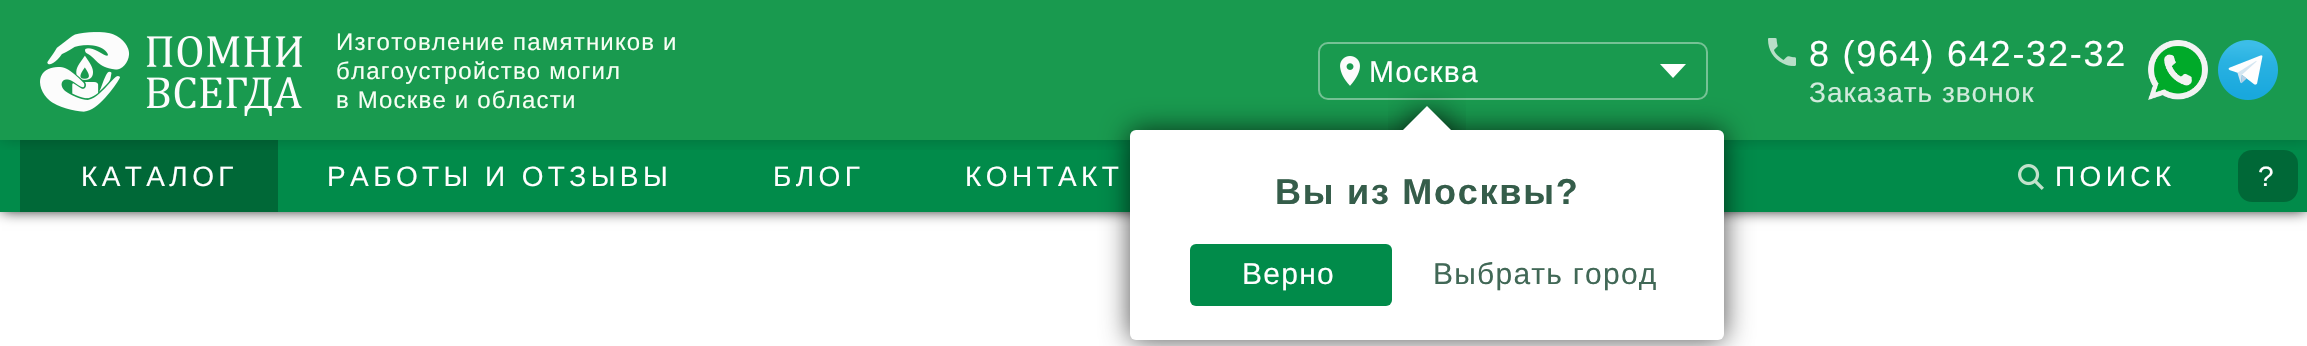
void draw(SkCanvas* canvas) {
  SkPaint paint;
  paint.setAntiAlias(true);
  auto face = [&](const char* family, int weight, float size, bool italic = false) {
    SkFontStyle style(weight, SkFontStyle::kNormal_Width,
      italic ? SkFontStyle::kItalic_Slant : SkFontStyle::kUpright_Slant);
    SkFont result(fontMgr->matchFamilyStyle(family, style), size);
    result.setSubpixel(true);
    return result;
  };
  auto writeSpaced = [&](const char* s, float x, float y, const SkFont& font, const SkPaint& ink, float letter, float word) {
    std::vector<SkGlyphID> glyphs(font.countText(s, strlen(s), SkTextEncoding::kUTF8));
    std::vector<float> xs(glyphs.size());
    font.textToGlyphs(s, strlen(s), SkTextEncoding::kUTF8, glyphs);
    font.getXPos(glyphs, xs, x);
    float extra = 0;
    for (size_t i = 0; i < glyphs.size(); i++) {
      xs[i] += extra;
      extra += letter + word * (glyphs[i] == font.unicharToGlyph(' '));
    }
    canvas->drawTextBlob(SkTextBlob::MakeFromPosHGlyphs(glyphs, xs, y, font), 0, 0, ink);
  };
  auto paste = [&](const char* path, float x, float y, float w, float h) {
    auto image = SkImages::DeferredFromEncodedData(SkData::MakeFromFileName(path));
    canvas->drawImageRect(image, SkRect::MakeXYWH(x, y, w, h), SkSamplingOptions());
  };
  auto shape = [&](const char* data, bool evenOdd = false) {
    SkPath result = *SkParsePath::FromSVGString(data);
    if (evenOdd) result.setFillType(SkPathFillType::kEvenOdd);
    return result;
  };
  canvas->clear(0xffffffff);
  paint.setColor(0xff000000);
  paint.setMaskFilter(SkMaskFilter::MakeBlur(kNormal_SkBlurStyle, 7));
  canvas->drawRect(SkRect::MakeXYWH(2, 142, 2304, 68), paint);
  paint.setMaskFilter(nullptr);
  {
    const struct { float x, y, w, h; SkColor color; } items[] = {
      {0, 0, 2307, 140, 0xff199a4f},
      {0, 140, 2307, 72, 0xff018b4a},
      {20, 140, 258, 72, 0xff006837},
    };
    for (auto [x, y, w, h, color] : items) {
      paint.setColor(color);
      canvas->drawRect(SkRect::MakeXYWH(x, y, w, h), paint);
    }
  }
  paste("img/7.png", 2018, 164, 26, 26);
  canvas->drawRoundRect(SkRect::MakeXYWH(2238, 150, 60, 52), 14, 14, paint);
  canvas->save();
  canvas->clipRect(SkRect::MakeXYWH(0, 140, 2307, 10));
  paint.setColor(0x36000000);
  paint.setMaskFilter(SkMaskFilter::MakeBlur(kNormal_SkBlurStyle, 8));
  canvas->drawRect(SkRect::MakeXYWH(0, 0, 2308, 140), paint);
  paint.setMaskFilter(nullptr);
  canvas->restore();
  paste("img/1.png", 40, 32, 262, 84);
  paste("img/2.png", 1340, 56, 20, 30);
  paint.setStroke(true);
  paint.setStrokeWidth(2);
  paint.setColor(0xff75c295);
  canvas->drawRoundRect(SkRect::MakeXYWH(1319, 43, 388, 56), 9, 9, paint);
  paste("img/3.png", 1660, 64, 26, 14);
  paste("img/4.png", 1768, 38, 28, 28);
  paste("img/5.png", 2148, 40, 60, 60);
  paste("img/6.png", 2218, 40, 60, 60);
  paint.setStroke(false);
  paint.setColor(0xb0000000);
  paint.setMaskFilter(SkMaskFilter::MakeBlur(kNormal_SkBlurStyle, 14));
  canvas->drawRoundRect(SkRect::MakeXYWH(1130, 130, 594, 210), 6, 6, paint);
  paint.setMaskFilter(nullptr);
  paint.setColor(0xffffffff);
  canvas->drawRoundRect(SkRect::MakeXYWH(1130, 130, 594, 210), 6, 6, paint);
  canvas->save();
  canvas->clipRect(SkRect::MakeXYWH(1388, 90, 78, 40));
  paint.setColor(0xb0000000);
  paint.setMaskFilter(SkMaskFilter::MakeBlur(kNormal_SkBlurStyle, 14));
  canvas->drawRect(SkRect::MakeXYWH(1408, 114, 40, 40), paint);
  paint.setMaskFilter(nullptr);
  canvas->restore();
  canvas->save();
  canvas->clipRect(SkRect::MakeXYWH(1388, 90, 78, 40));
  paint.setColor(0xffffffff);
  canvas->drawPath(shape("M1427 106L1455 134L1427 162L1399 134Z"), paint);
  canvas->restore();
  paint.setColor(0xff018b4a);
  canvas->drawRoundRect(SkRect::MakeXYWH(1190, 244, 202, 62), 6, 6, paint);
  auto f0 = face("Liberation Sans", 400, 24);
  paint.setColor(0xfff7fff4);
  {
    const struct { const char* s; float x, y; } items[] = {
      {"Изготовление памятников и", 336, 50},
      {"благоустройство могил", 336, 79},
      {"в Москве и области", 336, 108},
    };
    for (auto [s, x, y] : items) {
      writeSpaced(s, x, y, f0, paint, 1.2f, 0);
    }
  }
  auto f1 = face("Liberation Sans", 400, 30);
  paint.setColor(0xffffffff);
  writeSpaced("Москва", 1369, 82, f1, paint, 1.25f, 0);
  auto f2 = face("Liberation Sans", 400, 36);
  writeSpaced("8 (964) 642-32-32", 1809, 66, f2, paint, 1.75f, 0);
  auto f3 = face("Liberation Sans", 400, 28);
  paint.setColor(0xffd1ebdc);
  writeSpaced("Заказать звонок", 1809, 102, f3, paint, 1, 0);
  paint.setColor(0xffffffff);
  {
    const struct { const char* s; float x, y; } items[] = {
      {"КАТАЛОГ", 81, 186},
      {"РАБОТЫ И ОТЗЫВЫ", 327, 186},
      {"БЛОГ", 773, 186},
      {"КОНТАКТ", 965, 186},
      {"ПОИСК", 2055, 186},
      {"?", 2258, 186},
    };
    for (auto [s, x, y] : items) {
      writeSpaced(s, x, y, f3, paint, 4.4f, 0);
    }
  }
  auto f4 = face("Liberation Sans", 700, 36);
  paint.setColor(0xff355d4a);
  writeSpaced("Вы из Москвы?", 1275, 204, f4, paint, 1.75f, 0);
  paint.setColor(0xffffffff);
  writeSpaced("Верно", 1242, 284, f1, paint, 1.25f, 0);
  paint.setColor(0xff416856);
  writeSpaced("Выбрать город", 1433, 284, f1, paint, 1.25f, 0);
}
